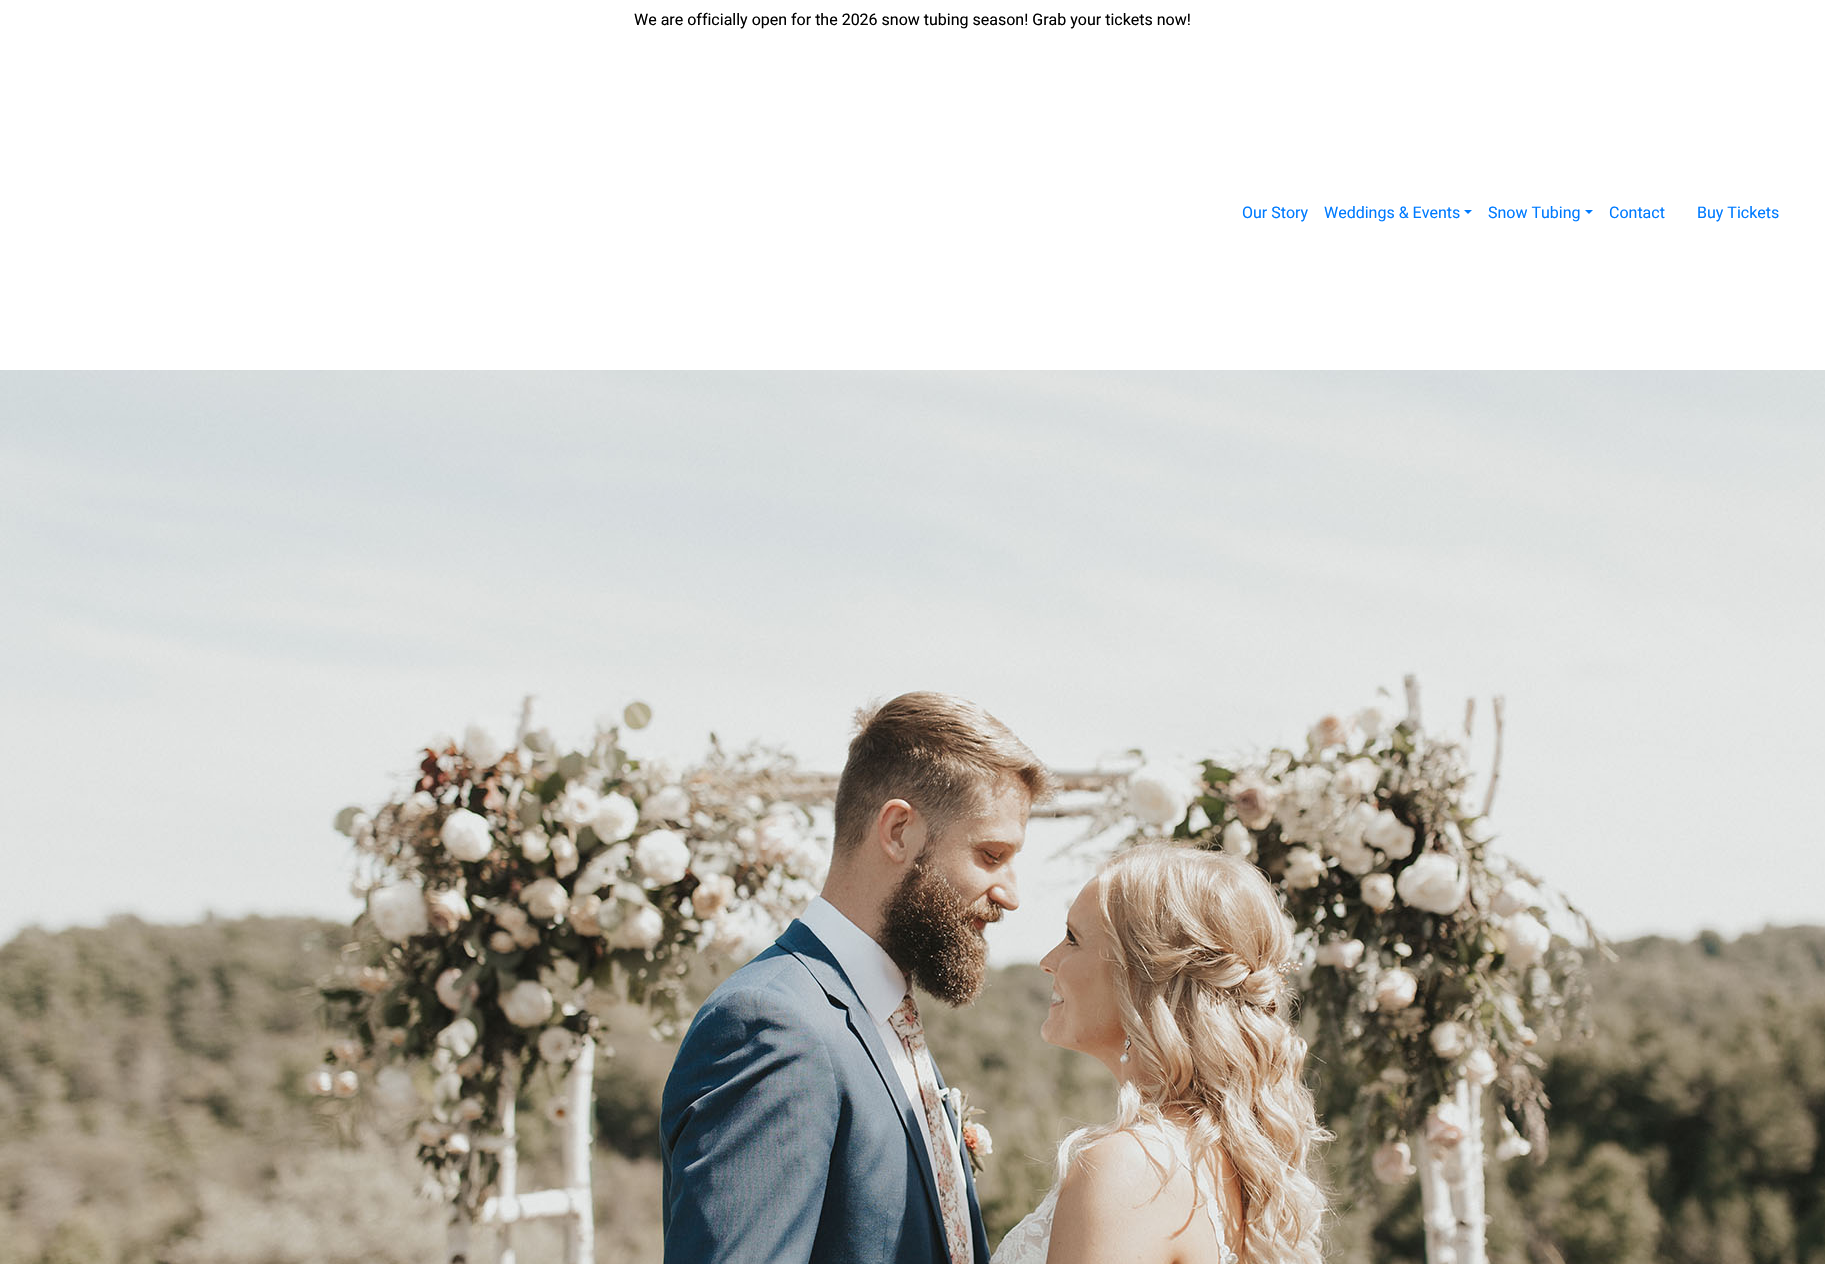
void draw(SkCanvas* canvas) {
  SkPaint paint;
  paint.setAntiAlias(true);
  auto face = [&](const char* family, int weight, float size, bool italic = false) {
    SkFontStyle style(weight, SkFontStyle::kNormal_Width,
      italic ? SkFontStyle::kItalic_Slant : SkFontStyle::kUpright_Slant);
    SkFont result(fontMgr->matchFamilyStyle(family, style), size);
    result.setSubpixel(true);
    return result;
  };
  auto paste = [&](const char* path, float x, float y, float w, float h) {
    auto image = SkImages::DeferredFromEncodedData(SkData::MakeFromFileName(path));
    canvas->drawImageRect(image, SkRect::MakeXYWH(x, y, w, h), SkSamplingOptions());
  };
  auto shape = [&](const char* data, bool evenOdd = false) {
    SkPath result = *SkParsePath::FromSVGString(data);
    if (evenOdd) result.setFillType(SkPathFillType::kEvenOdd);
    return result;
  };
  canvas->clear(0xffffffff);
  paint.setColor(0xff007bff);
  canvas->drawPath(shape("M1464 210H1472L1468 214Z"), paint);
  canvas->drawPath(shape("M1585 210H1593L1589 214Z"), paint);
  paste("img/1.png", 0, 370, 1825, 894);
  auto f0 = face("Roboto", 400, 16);
  paint.setColor(0xff000000);
  canvas->drawString("We are officially open for the 2026 snow tubing season! Grab your tickets now!", 634, 25, f0, paint);
  paint.setColor(0xff007bff);
  {
    const struct { const char* s; float x, y; } items[] = {
      {"Our Story", 1242, 218},
      {"Weddings & Events", 1324, 218},
      {"Snow Tubing", 1488, 218},
      {"Contact", 1609, 218},
      {"Buy Tickets", 1697, 218},
    };
    for (auto [s, x, y] : items) {
      canvas->drawString(s, x, y, f0, paint);
    }
  }
}
